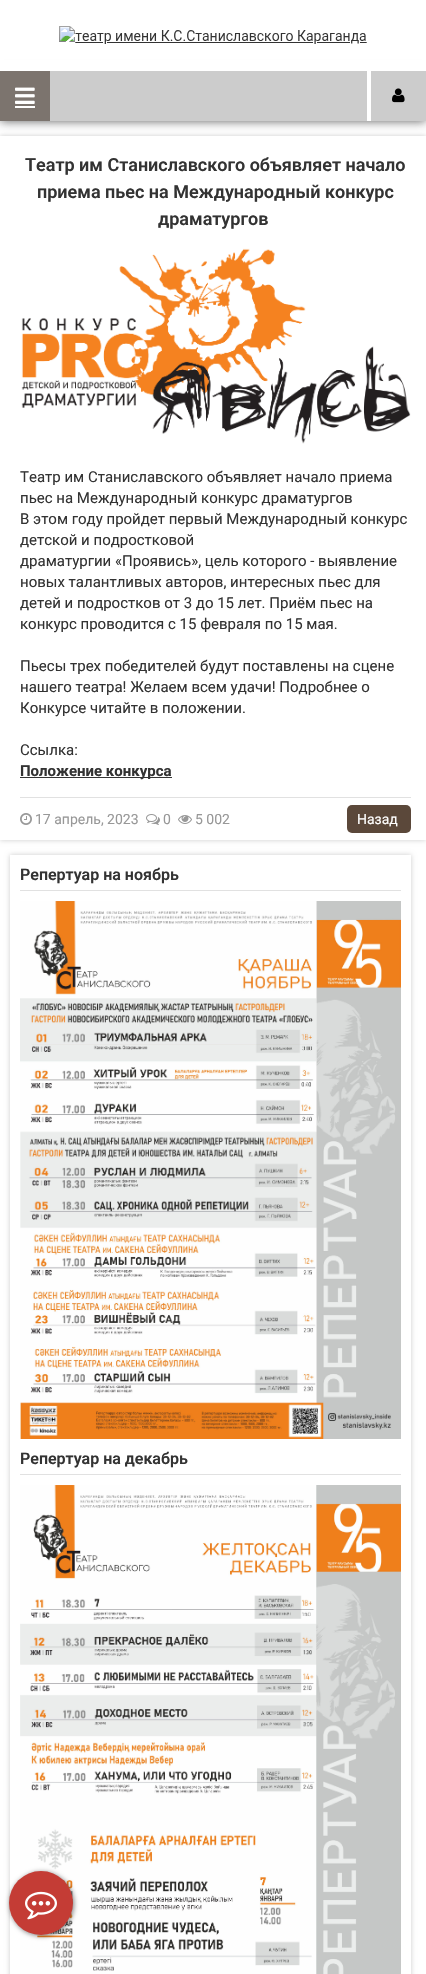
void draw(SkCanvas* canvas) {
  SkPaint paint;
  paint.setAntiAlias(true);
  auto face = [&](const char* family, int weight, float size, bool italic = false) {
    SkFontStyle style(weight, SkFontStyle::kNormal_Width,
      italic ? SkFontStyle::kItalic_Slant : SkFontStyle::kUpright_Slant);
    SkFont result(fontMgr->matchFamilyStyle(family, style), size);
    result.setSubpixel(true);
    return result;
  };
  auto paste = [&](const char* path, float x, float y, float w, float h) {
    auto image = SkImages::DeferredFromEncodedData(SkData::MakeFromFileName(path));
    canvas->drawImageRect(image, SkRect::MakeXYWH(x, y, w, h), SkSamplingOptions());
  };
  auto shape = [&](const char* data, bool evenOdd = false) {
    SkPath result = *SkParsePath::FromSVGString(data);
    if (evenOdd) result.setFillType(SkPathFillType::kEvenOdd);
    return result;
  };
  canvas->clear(0xffffffff);
  paint.setColor(0xcc333333);
  paint.setMaskFilter(SkMaskFilter::MakeBlur(kNormal_SkBlurStyle, 5));
  canvas->drawRect(SkRect::MakeXYWH(0, 71, 426, 50), paint);
  paint.setMaskFilter(nullptr);
  paint.setColor(0xffffffff);
  canvas->drawRect(SkRect::MakeXYWH(0, 60, 426, 11), paint);
  paste("img/1.png", 59, 26, 308, 18);
  paint.setColor(0xffcccccc);
  canvas->drawRect(SkRect::MakeXYWH(50, 71, 376, 50), paint);
  paint.setColor(0xff7c746e);
  canvas->drawRect(SkRect::MakeXYWH(0, 71, 50, 50), paint);
  paste("img/2.png", 15, 87, 20, 17);
  paint.setColor(0xffffffff);
  canvas->drawRect(SkRect::MakeXYWH(15, 106, 20, 2), paint);
  canvas->drawRect(SkRect::MakeXYWH(367, 71, 4, 50), paint);
  paste("img/3.png", 392, 88, 13, 15);
  canvas->save();
  canvas->clipPath(shape("M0 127H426V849H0ZM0 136H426V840H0Z", true), true);
  paint.setColor(0xffcccccc);
  paint.setMaskFilter(SkMaskFilter::MakeBlur(kNormal_SkBlurStyle, 2.5f));
  canvas->drawRect(SkRect::MakeXYWH(0, 136, 426, 704), paint);
  paint.setMaskFilter(nullptr);
  canvas->restore();
  paste("img/4.png", 21, 248, 390, 196);
  paint.setColor(0xff333333);
  canvas->drawRect(SkRect::MakeXYWH(20, 777, 152, 1), paint);
  paint.setColor(0xffe1e1e1);
  canvas->drawRect(SkRect::MakeXYWH(20, 797, 391, 1), paint);
  paste("img/5.png", 20, 813, 12, 12);
  paste("img/6.png", 146, 814, 14, 11);
  paste("img/7.png", 178, 815, 14, 9);
  paint.setColor(0xff5b483a);
  canvas->drawRoundRect(SkRect::MakeXYWH(347, 805, 64, 28), 5, 5, paint);
  canvas->save();
  canvas->clipPath(shape("M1 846H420V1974H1ZM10 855H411V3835H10Z", true), true);
  paint.setColor(0xffcccccc);
  paint.setMaskFilter(SkMaskFilter::MakeBlur(kNormal_SkBlurStyle, 2.5f));
  canvas->drawRect(SkRect::MakeXYWH(10, 855, 401, 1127), paint);
  paint.setMaskFilter(nullptr);
  canvas->restore();
  paint.setColor(0xffe1e1e1);
  canvas->drawRect(SkRect::MakeXYWH(20, 890, 381, 1), paint);
  paste("img/8.png", 20, 901, 381, 538);
  canvas->drawRect(SkRect::MakeXYWH(20, 1474, 381, 1), paint);
  paste("img/9.png", 20, 1485, 381, 489);
  paint.setColor(0x80000000);
  paint.setMaskFilter(SkMaskFilter::MakeBlur(kNormal_SkBlurStyle, 2.5f));
  canvas->drawRoundRect(SkRect::MakeXYWH(10, 1872, 64, 64), 32, 32, paint);
  paint.setMaskFilter(nullptr);
  paint.setColor(0xffc43c35);
  canvas->drawCircle(41, 1903, 32, paint);
  paste("img/10.png", 25, 1891, 32, 29);
  auto f0 = face("Roboto", 600, 18);
  paint.setColor(0xff333333);
  {
    const struct { const char* s; float x, y; } items[] = {
      {"Театр им Станиславского объявляет начало", 25, 171},
      {"приема пьес на Международный конкурс", 37, 198},
      {"драматургов", 158, 225},
    };
    for (auto [s, x, y] : items) {
      canvas->drawString(s, x, y, f0, paint);
    }
  }
  auto f1 = face("Roboto", 400, 15);
  {
    const struct { const char* s; float x, y; } items[] = {
      {"Театр им Станиславского объявляет начало приема", 20, 482},
      {"пьес на Международный конкурс драматургов", 20, 503},
      {"В этом году пройдет первый Международный конкурс", 20, 524},
      {"детской и подростковой", 20, 545},
      {"драматургии «Проявись», цель которого - выявление", 20, 566},
      {"новых талантливых авторов, интересных пьес для", 20, 587},
      {"детей и подростков от 3 до 15 лет. Приём пьес на", 20, 608},
      {"конкурс проводится с 15 февраля по 15 мая.", 20, 629},
      {"Пьесы трех победителей будут поставлены на сцене", 20, 671},
      {"нашего театра! Желаем всем удачи! Подробнее о", 20, 692},
      {"Конкурсе читайте в положении.", 20, 713},
      {"Ссылка:", 20, 755},
    };
    for (auto [s, x, y] : items) {
      canvas->drawString(s, x, y, f1, paint);
    }
  }
  auto f2 = face("Roboto", 700, 15);
  canvas->drawString("Положение конкурса", 20, 776, f2, paint);
  auto f3 = face("Roboto", 400, 14);
  paint.setColor(0xff989898);
  {
    const struct { const char* s; float x, y; } items[] = {
      {"17 апрель, 2023", 35, 824},
      {"0", 163, 824},
      {"5 002", 195, 824},
    };
    for (auto [s, x, y] : items) {
      canvas->drawString(s, x, y, f3, paint);
    }
  }
  paint.setColor(0xffffffff);
  canvas->drawString("Назад", 357, 824, f3, paint);
  auto f4 = face("Roboto", 600, 16);
  paint.setColor(0xff333333);
  canvas->drawString("Репертуар на ноябрь", 20, 880, f4, paint);
  canvas->drawString("Репертуар на декабрь", 20, 1464, f4, paint);
}
